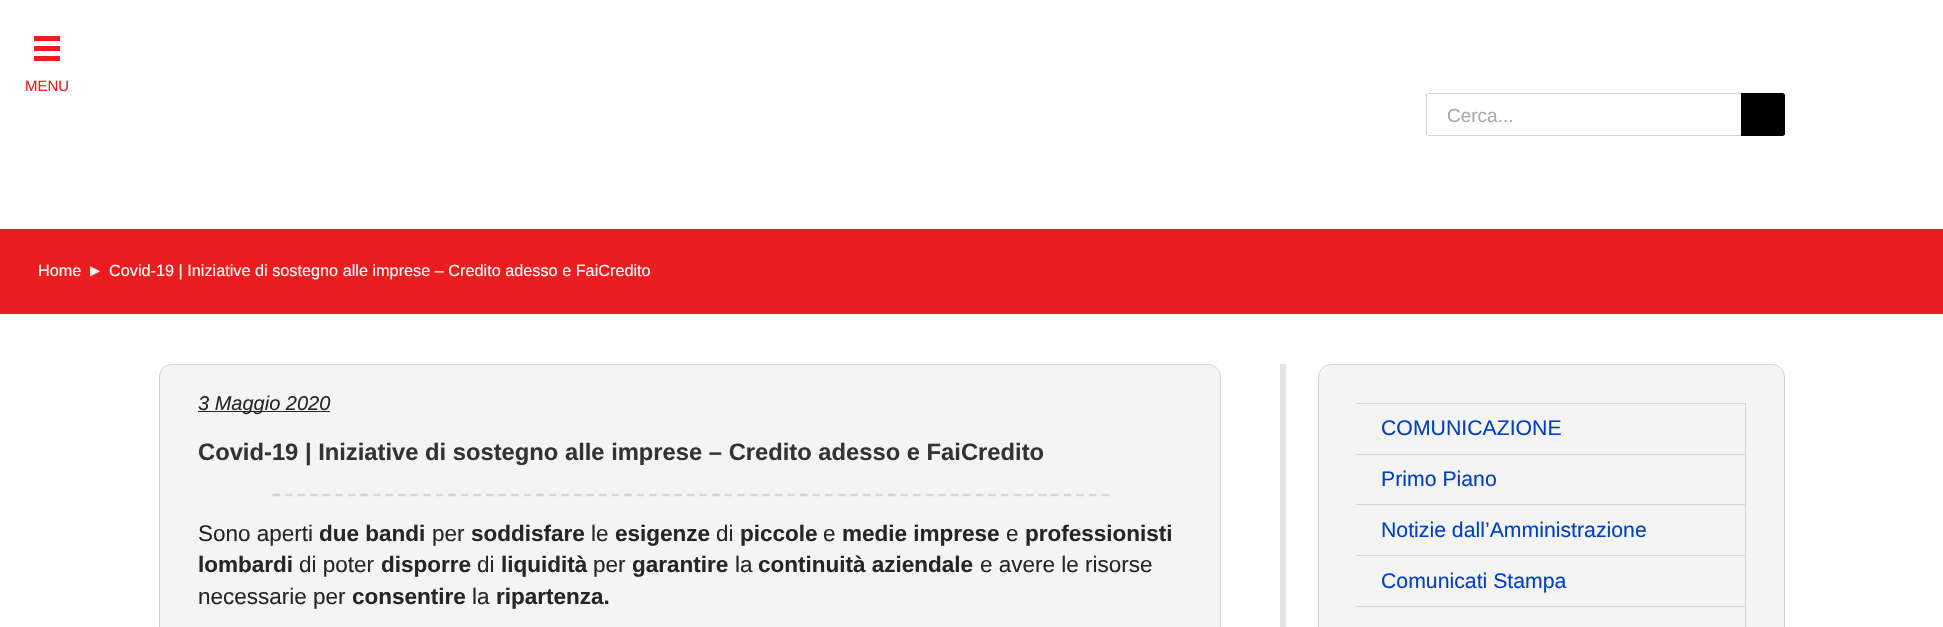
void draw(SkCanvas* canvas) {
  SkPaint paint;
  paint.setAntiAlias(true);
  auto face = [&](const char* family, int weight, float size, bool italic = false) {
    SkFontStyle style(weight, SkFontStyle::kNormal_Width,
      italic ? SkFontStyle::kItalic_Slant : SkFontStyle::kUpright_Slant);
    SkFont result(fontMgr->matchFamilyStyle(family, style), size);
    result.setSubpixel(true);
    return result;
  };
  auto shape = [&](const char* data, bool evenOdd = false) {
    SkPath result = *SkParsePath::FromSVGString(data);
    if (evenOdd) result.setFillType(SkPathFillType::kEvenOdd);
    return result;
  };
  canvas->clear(0xffffffff);
  {
    const struct { float x, y, w, h; SkColor color; } items[] = {
      {34, 46, 26, 5, 0xffeb1d1f},
      {34, 36, 26, 5, 0xffeb1d1f},
      {34, 56, 26, 5, 0xffeb1d1f},
      {1428, 93, 313, 1, 0xffd2d2d2},
      {1428, 135, 313, 1, 0xffd2d2d2},
      {1426, 94, 1, 41, 0xffd2d2d2},
    };
    for (auto [x, y, w, h, color] : items) {
      paint.setColor(color);
      canvas->drawRect(SkRect::MakeXYWH(x, y, w, h), paint);
    }
  }
  paint.setColor(0xff000000);
  canvas->drawPath(shape("M1741 93H1782.5C1784 93 1785 94 1785 95.5V133.5C1785 135 1784 136 1782.5 136H1741Z"), paint);
  paint.setColor(0xffeb1d1f);
  canvas->drawRect(SkRect::MakeXYWH(0, 229, 1943, 85), paint);
  paint.setColor(0xfff4f4f4);
  canvas->drawPath(shape("M172 364.5H1208C1215 364.5 1220.5 370 1220.5 377V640.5H159.5V377C159.5 370 165 364.5 172 364.5Z"), paint);
  paint.setStroke(true);
  paint.setStrokeWidth(1);
  paint.setColor(0xffd6d6d6);
  canvas->drawPath(shape("M172 364.5H1208C1215 364.5 1220.5 370 1220.5 377V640.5H159.5V377C159.5 370 165 364.5 172 364.5Z"), paint);
  paint.setStroke(false);
  paint.setColor(0xff262626);
  canvas->drawRect(SkRect::MakeXYWH(198, 411, 132, 1), paint);
  paint.setStroke(true);
  paint.setStrokeWidth(2.5f);
  paint.setColor(0xffd6d6d6);
  paint.setPathEffect(SkDashPathEffect::Make({{7.5f, 5.06f}}, 0));
  canvas->drawPath(shape("M272.5 495H1109"), paint);
  paint.setPathEffect(nullptr);
  paint.setStroke(false);
  paint.setColor(0xffe5e5e5);
  canvas->drawRect(SkRect::MakeXYWH(1280, 364, 6, 263), paint);
  paint.setColor(0xfff4f4f4);
  canvas->drawRoundRect(SkRect::MakeXYWH(1318.5f, 364.5f, 466, 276), 12.5f, 12.5f, paint);
  paint.setStroke(true);
  paint.setStrokeWidth(1);
  paint.setColor(0xffd6d6d6);
  canvas->drawRoundRect(SkRect::MakeXYWH(1318.5f, 364.5f, 466, 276), 12.5f, 12.5f, paint);
  paint.setStroke(false);
  {
    const struct { float x, y, w, h; SkColor color; } items[] = {
      {1356, 403, 390, 1, 0xffd6d6d6},
      {1745, 403, 1, 224, 0xffd6d6d6},
      {1356, 454, 389, 1, 0xffd6d6d6},
      {1356, 504, 389, 1, 0xffd6d6d6},
      {1356, 555, 389, 1, 0xffd6d6d6},
      {1356, 606, 389, 1, 0xffd6d6d6},
    };
    for (auto [x, y, w, h, color] : items) {
      paint.setColor(color);
      canvas->drawRect(SkRect::MakeXYWH(x, y, w, h), paint);
    }
  }
  auto f0 = face("Liberation Sans", 400, 15);
  paint.setColor(0xffeb1d1f);
  canvas->drawString("MENU", 25, 91, f0, paint);
  auto f1 = face("Liberation Sans", 400, 19);
  paint.setColor(0xffaaa9a9);
  canvas->drawString("Cerca...", 1447, 122, f1, paint);
  auto f2 = face("Liberation Sans", 400, 16.25f);
  paint.setColor(0xffffffff);
  {
    const struct { const char* s; float x, y; } items[] = {
      {"Home", 38, 276},
      {"►", 87, 276},
      {"Covid-19 | Iniziative di sostegno alle imprese – Credito adesso e FaiCredito", 109, 276},
    };
    for (auto [s, x, y] : items) {
      canvas->drawString(s, x, y, f2, paint);
    }
  }
  auto f3 = face("Liberation Sans", 400, 20, true);
  paint.setColor(0xff262626);
  canvas->drawString("3 Maggio 2020", 198, 410, f3, paint);
  auto f4 = face("Liberation Sans", 700, 23.75f);
  paint.setColor(0xff333333);
  canvas->drawString("Covid-19 | Iniziative di sostegno alle imprese – Credito adesso e FaiCredito", 198, 460, f4, paint);
  auto f5 = face("Liberation Sans", 400, 22.5f);
  paint.setColor(0xff262626);
  canvas->drawString("Sono aperti", 198, 541, f5, paint);
  auto f6 = face("Liberation Sans", 700, 22.5f);
  canvas->drawString("due bandi", 319, 541, f6, paint);
  canvas->drawString("per", 432, 541, f5, paint);
  canvas->drawString("soddisfare", 471, 541, f6, paint);
  canvas->drawString("le", 591, 541, f5, paint);
  canvas->drawString("esigenze", 615, 541, f6, paint);
  canvas->drawString("di", 716, 541, f5, paint);
  canvas->drawString("piccole", 740, 541, f6, paint);
  canvas->drawString("e", 823, 541, f5, paint);
  canvas->drawString("medie imprese", 842, 541, f6, paint);
  canvas->drawString("e", 1006, 541, f5, paint);
  canvas->drawString("professionisti", 1025, 541, f6, paint);
  canvas->drawString("lombardi", 198, 572, f6, paint);
  canvas->drawString("di poter", 299, 572, f5, paint);
  canvas->drawString("disporre", 381, 572, f6, paint);
  canvas->drawString("di", 477, 572, f5, paint);
  canvas->drawString("liquidità", 501, 572, f6, paint);
  canvas->drawString("per", 593, 572, f5, paint);
  canvas->drawString("garantire", 632, 572, f6, paint);
  canvas->drawString("la", 735, 572, f5, paint);
  canvas->drawString("continuità aziendale", 758, 572, f6, paint);
  canvas->drawString("e avere le risorse", 980, 572, f5, paint);
  canvas->drawString("necessarie per", 198, 604, f5, paint);
  canvas->drawString("consentire", 352, 604, f6, paint);
  canvas->drawString("la", 472, 604, f5, paint);
  canvas->drawString("ripartenza.", 496, 604, f6, paint);
  auto f7 = face("Liberation Sans", 400, 21.25f);
  paint.setColor(0xff0140bc);
  {
    const struct { const char* s; float x, y; } items[] = {
      {"COMUNICAZIONE", 1381, 435},
      {"Primo Piano", 1381, 486},
      {"Notizie dall’Amministrazione", 1381, 537},
      {"Comunicati Stampa", 1381, 588},
    };
    for (auto [s, x, y] : items) {
      canvas->drawString(s, x, y, f7, paint);
    }
  }
}
